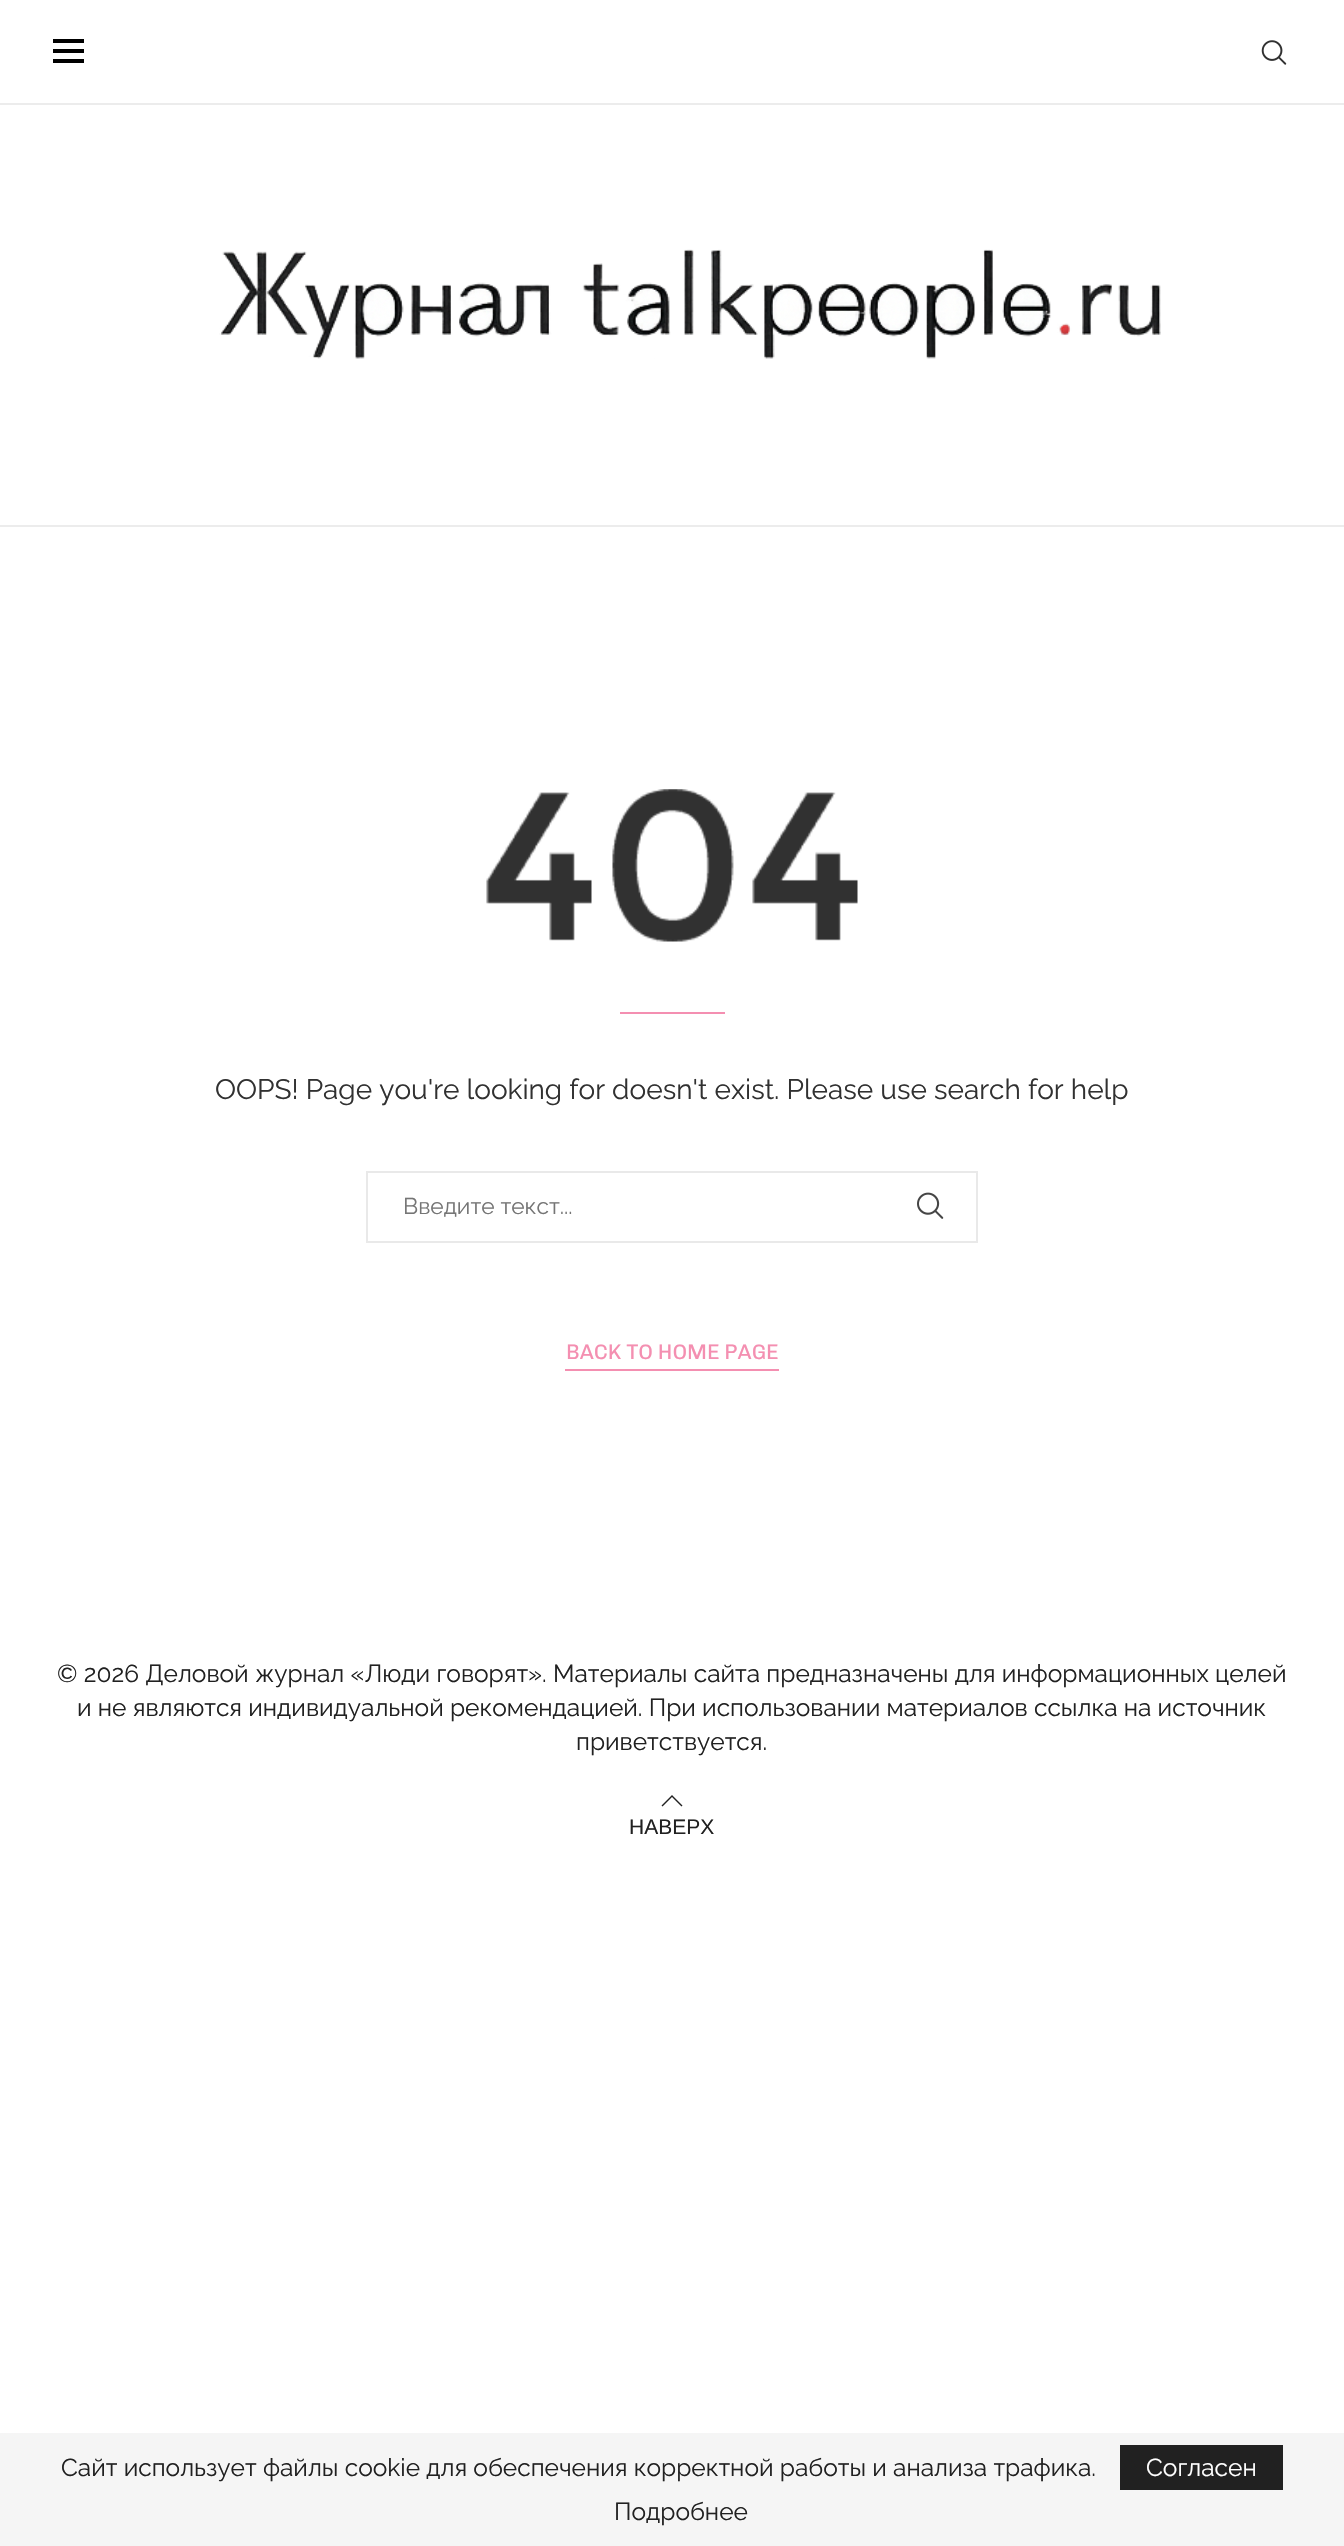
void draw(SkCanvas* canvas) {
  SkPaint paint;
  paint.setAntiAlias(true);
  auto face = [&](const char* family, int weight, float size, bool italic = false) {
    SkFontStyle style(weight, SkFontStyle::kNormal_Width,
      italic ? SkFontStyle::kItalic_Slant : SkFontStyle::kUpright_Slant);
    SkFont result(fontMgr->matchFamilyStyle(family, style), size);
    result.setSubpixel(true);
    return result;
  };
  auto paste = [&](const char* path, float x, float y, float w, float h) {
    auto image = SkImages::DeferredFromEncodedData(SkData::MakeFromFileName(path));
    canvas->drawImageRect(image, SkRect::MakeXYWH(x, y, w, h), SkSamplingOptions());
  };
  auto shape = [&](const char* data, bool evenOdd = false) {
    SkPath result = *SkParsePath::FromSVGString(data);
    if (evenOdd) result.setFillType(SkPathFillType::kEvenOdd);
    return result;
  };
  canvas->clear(0xffffffff);
  {
    const struct { float x, y, w, h; SkColor color; } items[] = {
      {0, 103, 1344, 2, 0xffececec},
      {53, 39, 31, 4, 0xff000000},
      {53, 49, 31, 4, 0xff000000},
      {53, 59, 31, 4, 0xff000000},
    };
    for (auto [x, y, w, h, color] : items) {
      paint.setColor(color);
      canvas->drawRect(SkRect::MakeXYWH(x, y, w, h), paint);
    }
  }
  paste("img/1.png", 1261, 40, 26, 25);
  paint.setColor(0xffececec);
  canvas->drawRect(SkRect::MakeXYWH(0, 525, 1344, 2), paint);
  paste("img/2.png", 219, 249, 942, 110);
  paste("img/3.png", 486, 789, 372, 153);
  paint.setColor(0xfff48fb1);
  canvas->drawRect(SkRect::MakeXYWH(620, 1012, 105, 2), paint);
  paint.setStroke(true);
  paint.setStrokeWidth(2);
  paint.setColor(0xffe9e9e9);
  canvas->drawRect(SkRect::MakeXYWH(367, 1172, 610, 70), paint);
  paste("img/4.png", 917, 1192, 27, 27);
  paint.setStroke(false);
  paint.setColor(0xfff48fb1);
  canvas->drawRect(SkRect::MakeXYWH(565, 1369, 214, 2), paint);
  paint.setColor(0xff212121);
  canvas->drawPath(shape("M672 1795L661.5 1805.5L662.5 1806.5L672 1797L681.5 1806.5L682.5 1805.5Z"), paint);
  paint.setColor(0xfff5f5f5);
  canvas->drawRect(SkRect::MakeXYWH(0, 2433, 1344, 113), paint);
  paint.setColor(0xff212121);
  canvas->drawRect(SkRect::MakeXYWH(1120, 2445, 163, 45), paint);
  auto f0 = face("Raleway", 400, 28);
  paint.setColor(0xff313131);
  canvas->drawString("OOPS! Page you're looking for doesn't exist. Please use search for help", 215, 1099, f0, paint);
  auto f1 = face("Raleway", 400, 22.75f);
  paint.setColor(0xff757575);
  canvas->drawString("Введите текст...", 403, 1214, f1, paint);
  auto f2 = face("Chivo", 400, 21);
  paint.setColor(0xfff48fb1);
  canvas->drawString("BACK TO HOME PAGE", 566, 1359, f2, paint);
  auto f3 = face("Raleway", 400, 24.5f);
  paint.setColor(0xff212121);
  {
    const struct { const char* s; float x, y; } items[] = {
      {"© 2026 Деловой журнал «Люди говорят». Материалы сайта предназначены для информационных целей", 57, 1682},
      {"и не являются индивидуальной рекомендацией. При использовании материалов ссылка на источник", 77, 1716},
      {"приветствуется.", 576, 1750},
    };
    for (auto [s, x, y] : items) {
      canvas->drawString(s, x, y, f3, paint);
    }
  }
  auto f4 = face("Liberation Sans", 400, 21);
  canvas->drawString("НАВЕРХ", 629, 1834, f4, paint);
  canvas->drawString("Сайт использует файлы cookie для обеспечения корректной работы и анализа трафика.", 61, 2476, f3, paint);
  paint.setColor(0xffffffff);
  canvas->drawString("Согласен", 1146, 2476, f3, paint);
  paint.setColor(0xff212121);
  canvas->drawString("Подробнее", 614, 2520, f3, paint);
}
